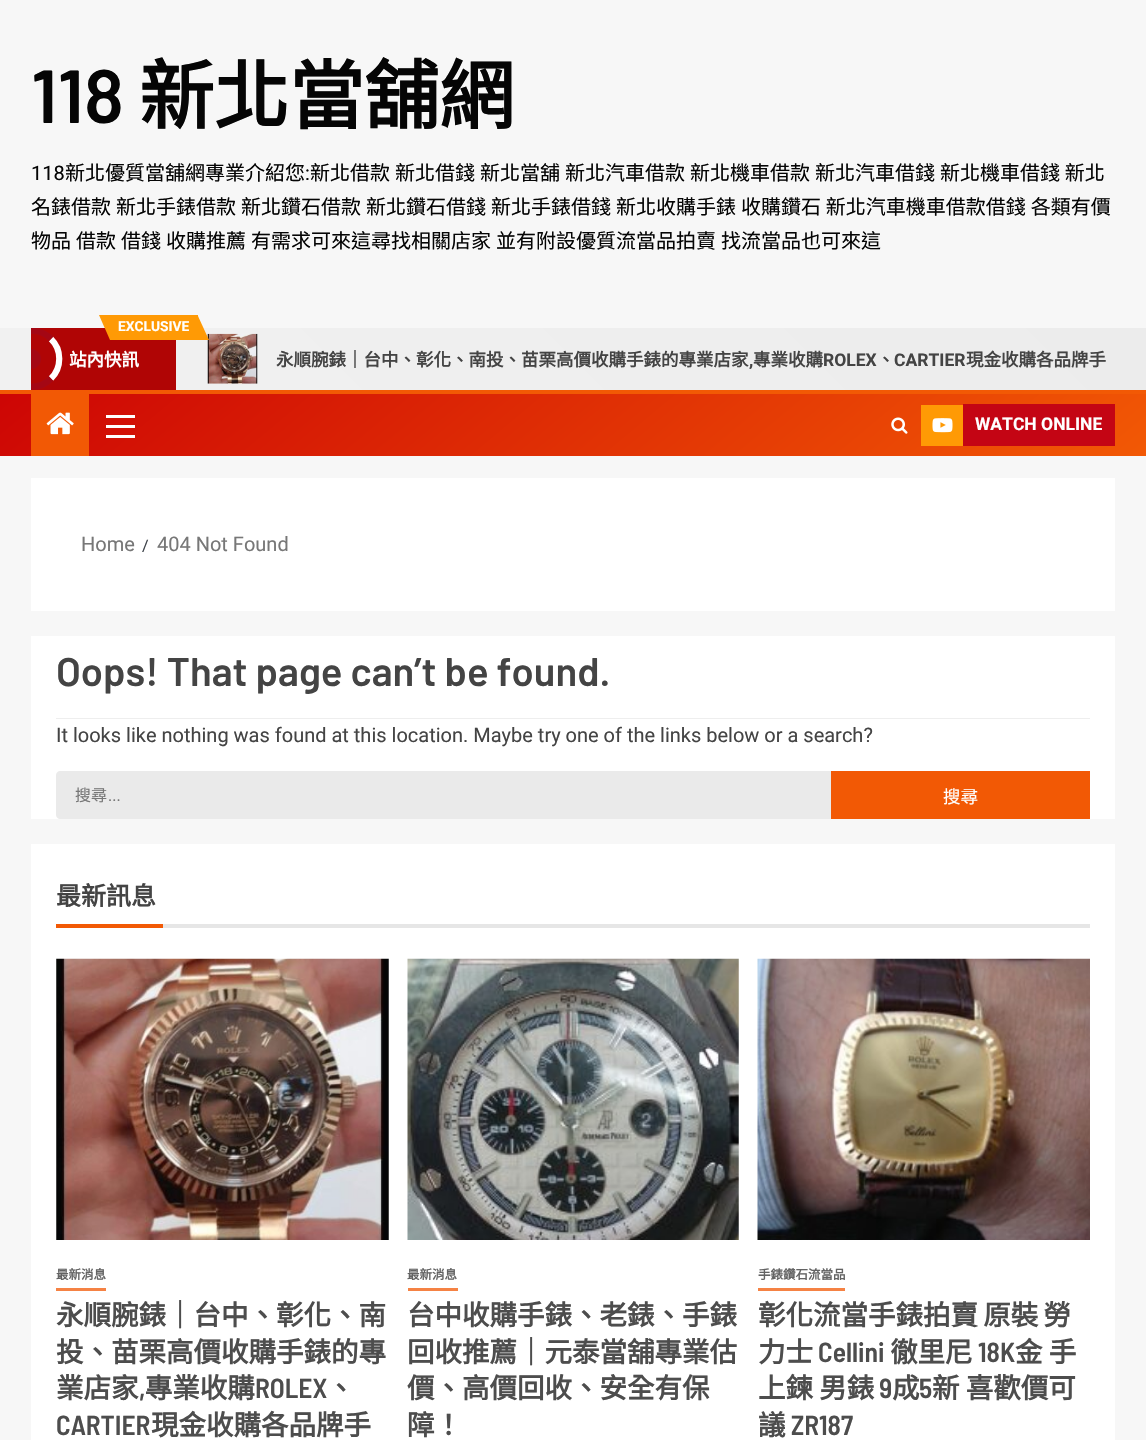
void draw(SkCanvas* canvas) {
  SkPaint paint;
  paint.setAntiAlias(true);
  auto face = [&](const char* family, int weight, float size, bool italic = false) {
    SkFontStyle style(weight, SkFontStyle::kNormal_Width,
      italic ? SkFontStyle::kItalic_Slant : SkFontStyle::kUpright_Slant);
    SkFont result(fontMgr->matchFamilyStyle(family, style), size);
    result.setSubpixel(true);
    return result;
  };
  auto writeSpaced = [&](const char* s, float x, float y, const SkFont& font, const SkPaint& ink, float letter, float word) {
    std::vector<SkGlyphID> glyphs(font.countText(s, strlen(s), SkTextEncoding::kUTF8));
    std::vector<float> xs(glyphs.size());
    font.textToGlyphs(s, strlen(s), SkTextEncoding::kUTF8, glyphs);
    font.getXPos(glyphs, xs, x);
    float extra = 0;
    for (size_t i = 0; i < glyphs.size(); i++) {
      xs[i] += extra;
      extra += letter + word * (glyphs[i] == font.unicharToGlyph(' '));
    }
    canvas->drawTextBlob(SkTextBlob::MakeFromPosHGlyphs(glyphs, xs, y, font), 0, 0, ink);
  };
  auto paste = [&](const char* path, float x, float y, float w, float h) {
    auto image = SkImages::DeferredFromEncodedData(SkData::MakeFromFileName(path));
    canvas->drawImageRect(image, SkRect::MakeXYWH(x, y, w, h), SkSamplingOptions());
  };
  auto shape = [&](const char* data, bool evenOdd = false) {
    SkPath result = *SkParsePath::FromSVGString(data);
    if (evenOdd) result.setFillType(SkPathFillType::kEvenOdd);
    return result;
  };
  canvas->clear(0xfff7f7f7);
  {
    const SkColor colors[] = {0xfff1f1f1, 0xffececec};
    const float stops[] = {0, 1};
    const SkPoint ends[] = {{271, 661}, {875, 57}};
    paint.setShader(SkGradientShader::MakeLinear(ends, colors, stops, 2, SkTileMode::kClamp));
    paint.setAlpha(255);
  }
  canvas->drawRect(SkRect::MakeXYWH(0, 328, 1146, 62), paint);
  paint.setShader(nullptr);
  paint.setColor(0xffb00505);
  canvas->drawRect(SkRect::MakeXYWH(31, 328, 145, 62), paint);
  paint.setColor(0xffff9a05);
  canvas->drawRect(SkRect::MakeXYWH(110, 315, 88, 25), paint);
  canvas->drawPath(shape("M99 315H110V340Z"), paint);
  paste("img/1.png", 207, 333, 51, 51);
  canvas->drawPath(shape("M209 340H197.5V315Z"), paint);
  paint.setStroke(true);
  paint.setStrokeWidth(6.2f);
  paint.setColor(0xffffffff);
  canvas->drawPath(shape("M51 339C62 349.5 62 368 51 378.5"), paint);
  canvas->save();
  canvas->clipRect(SkRect::MakeXYWH(31, 328, 145, 62));
  paint.setColor(0xffa40714);
  canvas->drawPath(shape("M11.5 339C22 328 40.5 328 51 339M51 378.5C40.5 389.5 22 389.5 11.5 378.5"), paint);
  canvas->restore();
  paint.setStroke(false);
  canvas->drawPath(shape("M31 349C36.5 349 41 353.5 41 359C41 364.5 36.5 369 31 369Z"), paint);
  {
    const SkColor colors[] = {0xffcd0505, 0xfff25905};
    const float stops[] = {0, 1};
    const SkPoint ends[] = {{321, 124}, {825, 726}};
    paint.setShader(SkGradientShader::MakeLinear(ends, colors, stops, 2, SkTileMode::kClamp));
    paint.setAlpha(255);
  }
  canvas->drawRect(SkRect::MakeXYWH(0, 394, 1146, 62), paint);
  paint.setShader(nullptr);
  paint.setColor(0xfff25905);
  canvas->drawRect(SkRect::MakeXYWH(0, 390, 1146, 4), paint);
  canvas->drawRect(SkRect::MakeXYWH(31, 394, 58, 62), paint);
  paste("img/2.png", 46, 412, 28, 23);
  {
    const struct { float x, y, w, h; SkColor color; } items[] = {
      {106, 425, 29, 3, 0xffffffff},
      {106, 415, 29, 3, 0xffffffff},
      {106, 435, 29, 3, 0xffffffff},
    };
    for (auto [x, y, w, h, color] : items) {
      paint.setColor(color);
      canvas->drawRect(SkRect::MakeXYWH(x, y, w, h), paint);
    }
  }
  paste("img/3.png", 891, 417, 17, 17);
  paint.setColor(0xffff9a05);
  canvas->drawRect(SkRect::MakeXYWH(921, 405, 42, 41), paint);
  paste("img/4.png", 932, 418, 21, 15);
  {
    const struct { float x, y, w, h; SkColor color; } items[] = {
      {963, 404, 152, 42, 0xffc40514},
      {31, 478, 1084, 133, 0xffffffff},
      {31, 636, 1084, 183, 0xffffffff},
      {56, 718, 1034, 1, 0xffeeeeee},
    };
    for (auto [x, y, w, h, color] : items) {
      paint.setColor(color);
      canvas->drawRect(SkRect::MakeXYWH(x, y, w, h), paint);
    }
  }
  paint.setColor(0xffeaeaea);
  canvas->drawPath(shape("M60 771H831V819H60C58 819 56 817 56 815V775C56 773 58 771 60 771Z"), paint);
  {
    const struct { float x, y, w, h; SkColor color; } items[] = {
      {831, 771, 259, 48, 0xfff25905},
      {31, 844, 1084, 596, 0xffffffff},
      {56, 924, 107, 4, 0xfff25905},
      {163, 924, 927, 4, 0xffe6e6e6},
    };
    for (auto [x, y, w, h, color] : items) {
      paint.setColor(color);
      canvas->drawRect(SkRect::MakeXYWH(x, y, w, h), paint);
    }
  }
  paste("img/5.png", 56, 958, 333, 282);
  paint.setColor(0xfff58244);
  canvas->drawRect(SkRect::MakeXYWH(56, 1288, 50, 3), paint);
  paste("img/6.png", 407, 958, 332, 282);
  canvas->drawRect(SkRect::MakeXYWH(408, 1288, 50, 3), paint);
  paste("img/7.png", 757, 958, 333, 282);
  canvas->drawRect(SkRect::MakeXYWH(758, 1288, 87, 3), paint);
  auto f0 = face("Barlow", 600, 75);
  paint.setColor(0xff050505);
  canvas->drawString("118", 31, 123, f0, paint);
  auto f1 = face("Noto Sans CJK TC", 700, 75);
  canvas->drawString("新北當舖網", 139, 123, f1, paint);
  auto f2 = face("Roboto", 400, 20);
  canvas->drawString("118", 31, 180, f2, paint);
  auto f3 = face("Noto Sans CJK TC", 400, 20);
  canvas->drawString("新北優質當舖網專業介紹您", 65, 180, f3, paint);
  canvas->drawString(":", 305, 180, f2, paint);
  {
    const struct { const char* s; float x, y; } items[] = {
      {"新北借款 新北借錢 新北當舖 新北汽車借款 新北機車借款 新北汽車借錢 新北機車借錢 新北", 310, 180},
      {"名錶借款 新北手錶借款 新北鑽石借款 新北鑽石借錢 新北手錶借錢 新北收購手錶 收購鑽石 新北汽車機車借款借錢 各類有價", 31, 214},
      {"物品 借款 借錢 收購推薦 有需求可來這尋找相關店家 並有附設優質流當品拍賣 找流當品也可來這", 31, 248},
    };
    for (auto [s, x, y] : items) {
      writeSpaced(s, x, y, f3, paint, 0, 0.5f);
    }
  }
  auto f4 = face("Roboto", 700, 13.75f);
  paint.setColor(0xffffffff);
  canvas->drawString("EXCLUSIVE", 118, 331, f4, paint);
  auto f5 = face("Noto Sans CJK TC", 700, 17.5f);
  canvas->drawString("站內快訊", 69, 366, f5, paint);
  paint.setColor(0xff444444);
  canvas->drawString("永順腕錶｜台中、彰化、南投、苗栗高價收購手錶的專業店家", 276, 366, f5, paint);
  canvas->drawString("專業收購", 753, 366, f5, paint);
  auto f6 = face("Roboto", 700, 17.5f);
  canvas->drawString("ROLEX", 823, 366, f6, paint);
  canvas->drawString("、", 877, 366, f5, paint);
  canvas->drawString("CARTIER", 894, 366, f6, paint);
  canvas->drawString("現金收購各品牌手", 966, 366, f5, paint);
  canvas->drawString(",", 749, 366, f6, paint);
  paint.setColor(0xffffffff);
  canvas->drawString("WATCH ONLINE", 975, 430, f6, paint);
  paint.setColor(0xff777777);
  canvas->drawString("Home", 81, 551, f2, paint);
  auto f7 = face("Roboto", 400, 16);
  paint.setColor(0xff3d4249);
  canvas->drawString("/", 142, 551, f7, paint);
  paint.setColor(0xff777777);
  canvas->drawString("404 Not Found", 157, 551, f2, paint);
  auto f8 = face("Barlow", 600, 40);
  paint.setColor(0xff444444);
  canvas->drawString("Oops! That page can’t be found.", 56, 686, f8, paint);
  canvas->drawString("It looks like nothing was found at this location. Maybe try one of the links below or a search?", 56, 742, f2, paint);
  auto f9 = face("Noto Sans CJK TC", 400, 16);
  paint.setColor(0xff777777);
  canvas->drawString("搜尋", 75, 801, f9, paint);
  canvas->drawString("...", 108, 801, f7, paint);
  auto f10 = face("Noto Sans CJK TC", 400, 17.5f);
  paint.setColor(0xffffffff);
  canvas->drawString("搜尋", 943, 803, f10, paint);
  auto f11 = face("Noto Sans CJK TC", 700, 25);
  paint.setColor(0xff444444);
  canvas->drawString("最新訊息", 56, 905, f11, paint);
  auto f12 = face("Noto Sans CJK TC", 700, 12.5f);
  paint.setColor(0xff636363);
  canvas->drawString("最新消息", 56, 1279, f12, paint);
  auto f13 = face("Noto Sans CJK TC", 700, 27.5f);
  paint.setColor(0xff4d4d4d);
  {
    const struct { const char* s; float x, y; } items[] = {
      {"永順腕錶｜台中、彰化、南", 56, 1325},
      {"投、苗栗高價收購手錶的專", 56, 1362},
      {"業店家 專業收購", 56, 1398},
    };
    for (auto [s, x, y] : items) {
      canvas->drawString(s, x, y, f13, paint);
    }
  }
  auto f14 = face("Barlow Semi Condensed", 600, 27.5f);
  canvas->drawString("ROLEX", 255, 1398, f14, paint);
  canvas->drawString("、", 327, 1398, f13, paint);
  canvas->drawString(",", 139, 1398, f14, paint);
  canvas->drawString("CARTIER", 56, 1435, f14, paint);
  canvas->drawString("現金收購各品牌手", 151, 1435, f13, paint);
  paint.setColor(0xff636363);
  canvas->drawString("最新消息", 407, 1279, f12, paint);
  paint.setColor(0xff4d4d4d);
  {
    const struct { const char* s; float x, y; } items[] = {
      {"台中收購手錶、老錶、手錶", 407, 1325},
      {"回收推薦｜元泰當舖專業估", 407, 1362},
      {"價、高價回收、安全有保", 407, 1398},
      {"障！", 407, 1435},
    };
    for (auto [s, x, y] : items) {
      canvas->drawString(s, x, y, f13, paint);
    }
  }
  paint.setColor(0xff636363);
  canvas->drawString("手錶鑽石流當品", 758, 1279, f12, paint);
  paint.setColor(0xff4d4d4d);
  writeSpaced("彰化流當手錶拍賣 原裝 勞", 758, 1325, f13, paint, 0, -1);
  canvas->drawString("力士", 758, 1362, f13, paint);
  canvas->drawString("Cellini", 818, 1362, f14, paint);
  canvas->drawString("徹里尼", 890, 1362, f13, paint);
  canvas->drawString("18K", 978, 1362, f14, paint);
  canvas->drawString("金 手", 1015, 1362, f13, paint);
  canvas->drawString("上鍊 男錶", 758, 1398, f13, paint);
  canvas->drawString("9", 879, 1398, f14, paint);
  canvas->drawString("成", 892, 1398, f13, paint);
  canvas->drawString("5", 919, 1398, f14, paint);
  canvas->drawString("新 喜歡價可", 932, 1398, f13, paint);
  canvas->drawString("議", 758, 1435, f13, paint);
  canvas->drawString("ZR187", 791, 1435, f14, paint);
}
